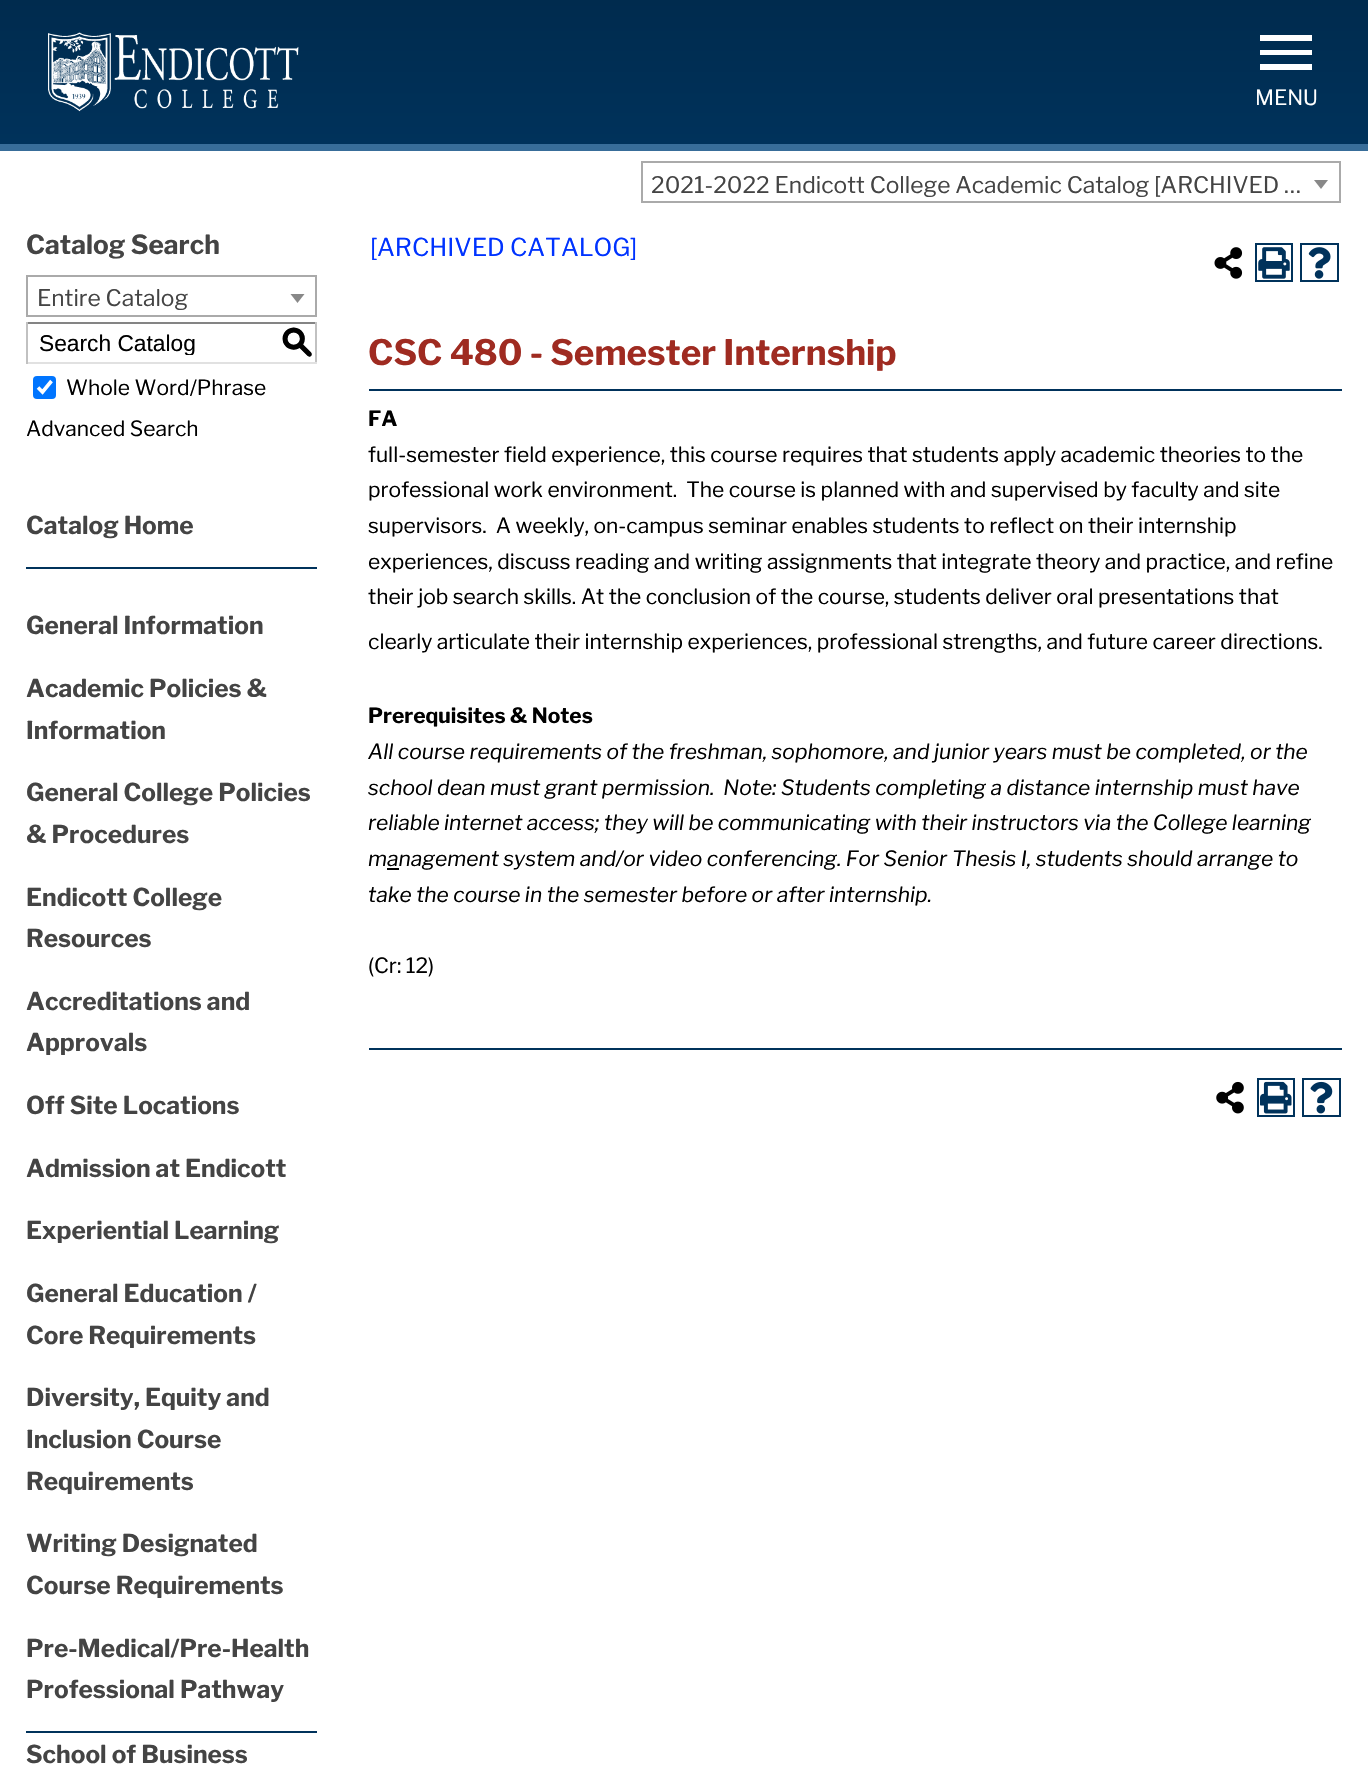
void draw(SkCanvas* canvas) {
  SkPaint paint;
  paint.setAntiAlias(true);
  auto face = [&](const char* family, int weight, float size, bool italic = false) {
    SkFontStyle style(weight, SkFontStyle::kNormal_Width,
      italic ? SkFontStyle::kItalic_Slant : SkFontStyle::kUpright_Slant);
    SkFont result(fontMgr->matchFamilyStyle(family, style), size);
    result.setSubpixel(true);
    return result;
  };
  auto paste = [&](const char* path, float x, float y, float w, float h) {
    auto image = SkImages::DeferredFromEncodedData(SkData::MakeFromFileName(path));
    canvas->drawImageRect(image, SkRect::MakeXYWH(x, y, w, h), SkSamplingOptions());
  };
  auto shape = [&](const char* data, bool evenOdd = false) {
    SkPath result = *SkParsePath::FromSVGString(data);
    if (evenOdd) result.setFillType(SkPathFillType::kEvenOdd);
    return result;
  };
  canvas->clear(0xffffffff);
  {
    const SkColor colors[] = {0xff002b4e, 0xff00325b};
    const float stops[] = {0, 1};
    const SkPoint ends[] = {{684, 0}, {684, 144}};
    paint.setShader(SkGradientShader::MakeLinear(ends, colors, stops, 2, SkTileMode::kClamp));
    paint.setAlpha(255);
  }
  canvas->drawRect(SkRect::MakeXYWH(0, 0, 1368, 144), paint);
  paint.setShader(nullptr);
  paint.setColor(0xff386d99);
  canvas->drawRect(SkRect::MakeXYWH(0, 144, 1368, 7), paint);
  paste("img/1.png", 48, 32, 251, 80);
  paint.setColor(0xffffffff);
  canvas->drawPath(shape("M1260 35H1312V41H1260ZM1260 55V50H1312V55ZM1260 70V64H1312V70Z"), paint);
  paint.setStroke(true);
  paint.setStrokeWidth(2);
  paint.setColor(0xffaaaaaa);
  canvas->drawRect(SkRect::MakeXYWH(642, 162, 698, 40), paint);
  paint.setStroke(false);
  paint.setColor(0xff888888);
  canvas->drawPath(shape("M1314 180H1328L1321 189Z"), paint);
  paint.setStroke(true);
  paint.setColor(0xffaaaaaa);
  canvas->drawRect(SkRect::MakeXYWH(27, 276, 289, 40), paint);
  paint.setStroke(false);
  paint.setColor(0xff888888);
  canvas->drawPath(shape("M290.5 294H304.5L297.5 303Z"), paint);
  {
    const struct { float x, y, w, h; SkColor color; } items[] = {
      {26, 322, 291, 2, 0xff848484},
      {315, 322, 2, 42, 0xffc1c1c1},
      {26, 362, 291, 2, 0xffe1e1e1},
      {26, 322, 2, 42, 0xffc1c1c1},
    };
    for (auto [x, y, w, h, color] : items) {
      paint.setColor(color);
      canvas->drawRect(SkRect::MakeXYWH(x, y, w, h), paint);
    }
  }
  paint.setColor(0xff0075ff);
  canvas->drawRoundRect(SkRect::MakeXYWH(33, 376, 23, 23), 4, 4, paint);
  paint.setStroke(true);
  paint.setStrokeWidth(3.6f);
  paint.setColor(0xffffffff);
  canvas->drawPath(shape("M38 387.5L42.5 392L51.5 381"), paint);
  paint.setStroke(false);
  paint.setColor(0xff00325b);
  canvas->drawRect(SkRect::MakeXYWH(26, 567, 291, 2), paint);
  canvas->drawRect(SkRect::MakeXYWH(26, 1731, 291, 2), paint);
  paste("img/2.png", 1214, 247, 29, 32);
  paint.setStroke(true);
  paint.setStrokeWidth(2);
  canvas->drawRect(SkRect::MakeXYWH(1256, 244, 36, 37), paint);
  paste("img/3.png", 1258, 247, 32, 32);
  canvas->drawRect(SkRect::MakeXYWH(1301, 244, 37, 37), paint);
  paste("img/4.png", 1308, 247, 23, 32);
  paint.setStroke(false);
  {
    const struct { float x, y, w, h; SkColor color; } items[] = {
      {369, 389, 973, 2, 0xff00325b},
      {387, 868, 12, 2, 0xff000000},
      {369, 1048, 973, 2, 0xff00325b},
    };
    for (auto [x, y, w, h, color] : items) {
      paint.setColor(color);
      canvas->drawRect(SkRect::MakeXYWH(x, y, w, h), paint);
    }
  }
  paste("img/5.png", 1216, 1081, 28, 33);
  paint.setStroke(true);
  canvas->drawRect(SkRect::MakeXYWH(1258, 1079, 36, 37), paint);
  paste("img/6.png", 1260, 1081, 32, 33);
  canvas->drawRect(SkRect::MakeXYWH(1303, 1079, 37, 37), paint);
  paste("img/7.png", 1310, 1081, 23, 33);
  auto f0 = face("Libre Franklin", 400, 21);
  paint.setStroke(false);
  paint.setColor(0xffffffff);
  canvas->drawString("MENU", 1255, 105, f0, paint);
  auto f1 = face("Libre Franklin", 400, 22.75f);
  paint.setColor(0xff444444);
  canvas->drawString("2021-2022 Endicott College Academic Catalog [ARCHIVED …", 651, 193, f1, paint);
  auto f2 = face("Libre Franklin", 700, 26.25f);
  canvas->drawString("Catalog Search", 26, 254, f2, paint);
  canvas->drawString("Entire Catalog", 37, 306, f1, paint);
  canvas->save();
  canvas->clipRect(SkRect::MakeXYWH(39, 329, 234, 26));
  auto f3 = face("Liberation Sans", 400, 22.75f);
  paint.setColor(0xff000000);
  canvas->drawString("Search Catalog", 39, 351, f3, paint);
  canvas->restore();
  auto f4 = face("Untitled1", 500, 32);
  canvas->drawString("S", 281, 352, f4, paint);
  canvas->drawString("Whole Word/Phrase", 66, 395, f0, paint);
  canvas->drawString("Advanced Search", 26, 436, f0, paint);
  auto f5 = face("Libre Franklin", 700, 24.5f);
  paint.setColor(0xff444444);
  {
    const struct { const char* s; float x, y; } items[] = {
      {"Catalog Home", 26, 534},
      {"General Information", 26, 634},
      {"Academic Policies &", 26, 697},
      {"Information", 26, 739},
      {"General College Policies", 26, 801},
      {"& Procedures", 26, 843},
      {"Endicott College", 26, 906},
      {"Resources", 26, 947},
      {"Accreditations and", 26, 1010},
      {"Approvals", 26, 1051},
      {"Off Site Locations", 26, 1114},
      {"Admission at Endicott", 26, 1177},
      {"Experiential Learning", 26, 1239},
      {"General Education /", 26, 1302},
      {"Core Requirements", 26, 1344},
      {"Diversity, Equity and", 26, 1406},
      {"Inclusion Course", 26, 1448},
      {"Requirements", 26, 1490},
      {"Writing Designated", 26, 1552},
      {"Course Requirements", 26, 1594},
      {"Pre-Medical/Pre-Health", 26, 1657},
      {"Professional Pathway", 26, 1698},
      {"School of Business", 26, 1763},
    };
    for (auto [s, x, y] : items) {
      canvas->drawString(s, x, y, f5, paint);
    }
  }
  auto f6 = face("Libre Franklin", 400, 24.5f);
  paint.setColor(0xff0033ff);
  canvas->drawString("[ARCHIVED CATALOG]", 370, 256, f6, paint);
  auto f7 = face("Libre Franklin", 700, 35);
  paint.setColor(0xff9f2b21);
  canvas->drawString("CSC 480 - Semester Internship", 368, 365, f7, paint);
  auto f8 = face("Libre Franklin", 700, 21);
  paint.setColor(0xff000000);
  canvas->drawString("FA", 368, 426, f8, paint);
  {
    const struct { const char* s; float x, y; } items[] = {
      {"full-semester field experience, this course requires that students apply academic theories to the", 368, 462},
      {"professional work environment.  The course is planned with and supervised by faculty and site", 368, 497},
      {"supervisors.  A weekly, on-campus seminar enables students to reflect on their internship", 368, 533},
      {"experiences, discuss reading and writing assignments that integrate theory and practice, and refine", 368, 569},
      {"their job search skills. At the conclusion of the course, students deliver oral presentations that", 368, 604},
      {"clearly articulate their internship experiences, professional strengths, and future career directions.", 368, 649},
    };
    for (auto [s, x, y] : items) {
      canvas->drawString(s, x, y, f0, paint);
    }
  }
  canvas->drawString("Prerequisites & Notes", 368, 723, f8, paint);
  auto f9 = face("Libre Franklin", 400, 21, true);
  {
    const struct { const char* s; float x, y; } items[] = {
      {"All course requirements of the freshman, sophomore, and junior years must be completed, or the", 368, 759},
      {"school dean must grant permission.  Note: Students completing a distance internship must have", 368, 795},
      {"reliable internet access; they will be communicating with their instructors via the College learning", 368, 830},
      {"management system and/or video conferencing. For Senior Thesis I, students should arrange to", 368, 866},
      {"take the course in the semester before or after internship.", 368, 902},
    };
    for (auto [s, x, y] : items) {
      canvas->drawString(s, x, y, f9, paint);
    }
  }
  canvas->drawString("(Cr: 12)", 368, 973, f0, paint);
}
